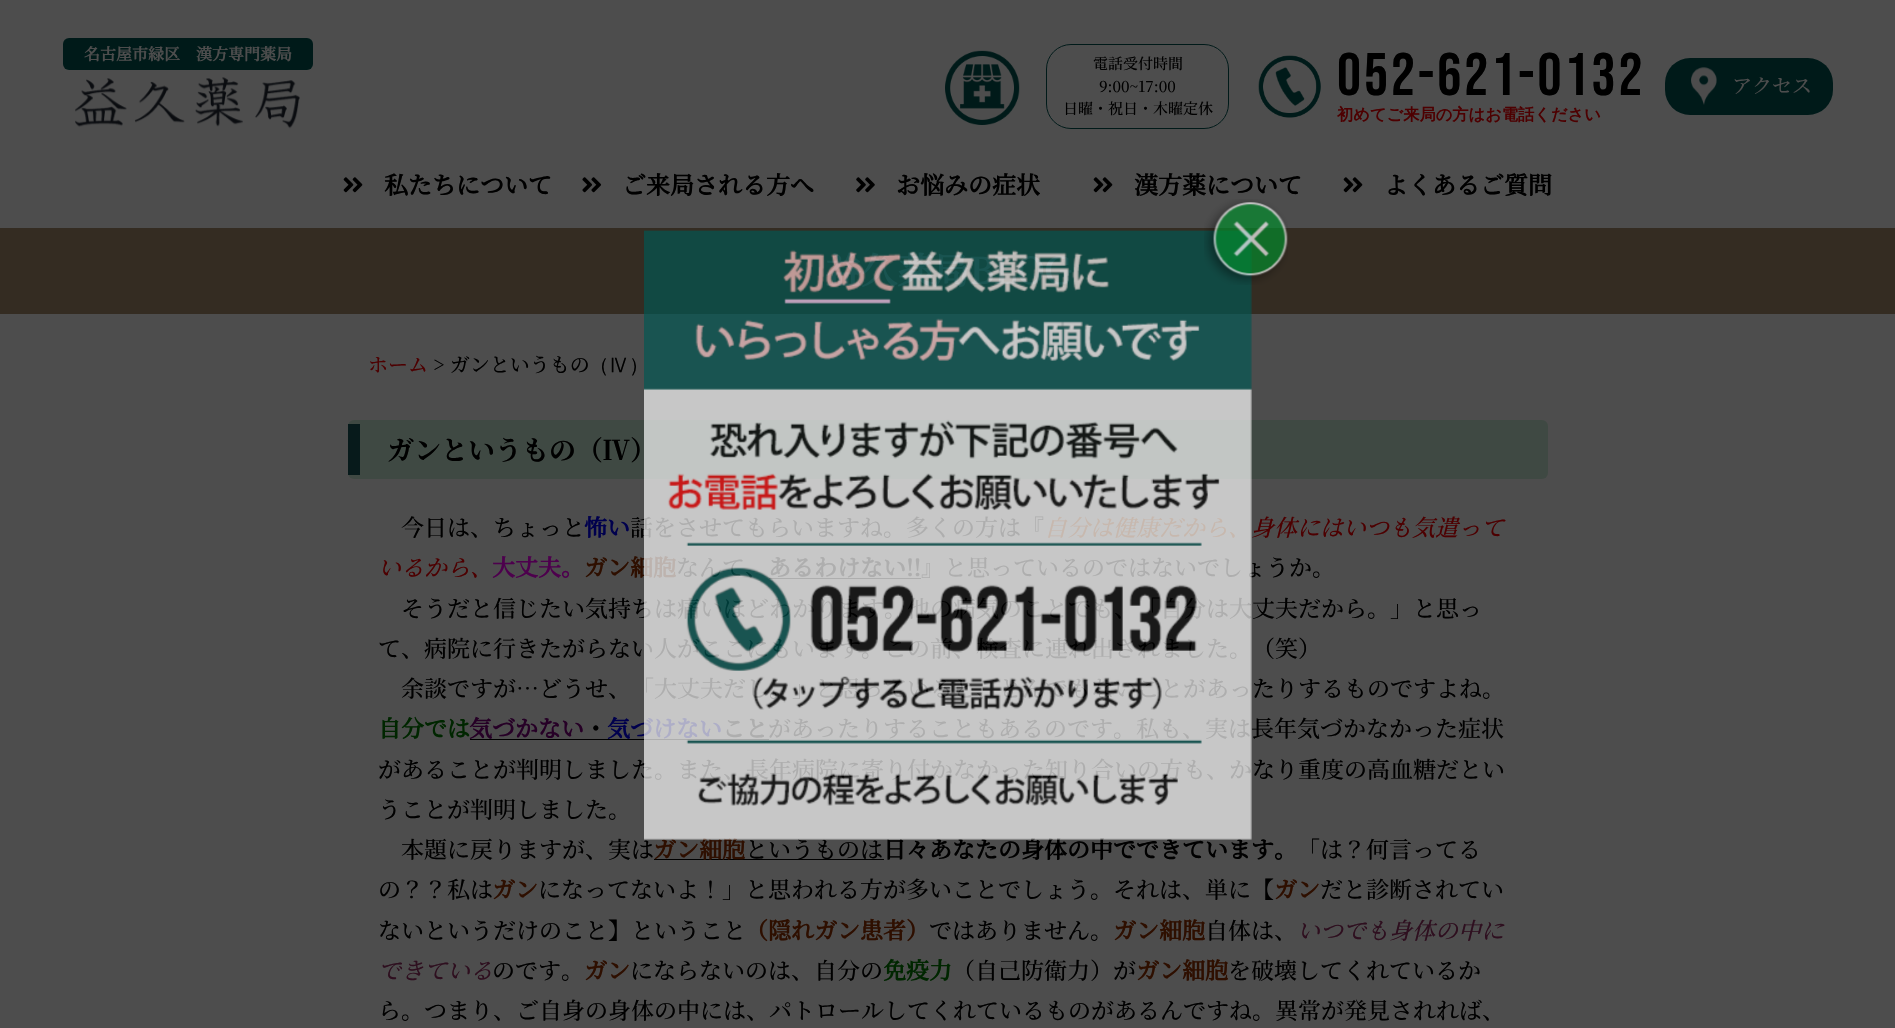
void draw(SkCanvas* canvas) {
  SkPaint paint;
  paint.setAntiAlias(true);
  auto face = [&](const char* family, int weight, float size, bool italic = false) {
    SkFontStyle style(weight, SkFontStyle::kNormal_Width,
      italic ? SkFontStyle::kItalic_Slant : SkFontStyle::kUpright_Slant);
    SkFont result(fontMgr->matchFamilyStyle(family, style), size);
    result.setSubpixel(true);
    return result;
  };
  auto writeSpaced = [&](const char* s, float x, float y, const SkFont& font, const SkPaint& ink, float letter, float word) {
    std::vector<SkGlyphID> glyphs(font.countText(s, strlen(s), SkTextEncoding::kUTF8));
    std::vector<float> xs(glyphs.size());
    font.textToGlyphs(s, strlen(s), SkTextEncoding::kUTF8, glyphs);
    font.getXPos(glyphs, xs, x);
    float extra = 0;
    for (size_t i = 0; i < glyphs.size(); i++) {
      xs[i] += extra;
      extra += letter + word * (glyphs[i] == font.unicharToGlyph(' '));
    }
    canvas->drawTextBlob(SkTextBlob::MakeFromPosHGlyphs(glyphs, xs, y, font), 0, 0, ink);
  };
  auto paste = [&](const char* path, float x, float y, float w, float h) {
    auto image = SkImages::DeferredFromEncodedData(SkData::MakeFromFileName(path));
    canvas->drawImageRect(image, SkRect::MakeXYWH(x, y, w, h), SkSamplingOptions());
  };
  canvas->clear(0xff4d4d4d);
  paint.setColor(0xff001a19);
  canvas->drawRoundRect(SkRect::MakeXYWH(63, 38, 250, 32), 6, 6, paint);
  paste("img/1.png", 75, 77, 225, 52);
  paste("img/2.png", 945, 50, 75, 75);
  paint.setStroke(true);
  paint.setStrokeWidth(1);
  canvas->drawRoundRect(SkRect::MakeXYWH(1046.5f, 44.5f, 182, 84), 24.5f, 24.5f, paint);
  paste("img/3.png", 1258, 55, 63, 63);
  paint.setStroke(false);
  canvas->drawRoundRect(SkRect::MakeXYWH(1665, 58, 168, 57), 25, 25, paint);
  paste("img/4.png", 1691, 67, 26, 38);
  paste("img/5.png", 343, 177, 20, 16);
  paste("img/6.png", 582, 177, 20, 16);
  paste("img/7.png", 856, 177, 19, 16);
  paste("img/5.png", 1093, 177, 20, 16);
  paste("img/5.png", 1343, 177, 20, 16);
  paint.setColor(0xff342c22);
  canvas->drawRect(SkRect::MakeXYWH(0, 228, 1895, 86), paint);
  paint.setColor(0xff3f4943);
  canvas->drawRoundRect(SkRect::MakeXYWH(348, 420, 1200, 59), 6, 6, paint);
  {
    const struct { float x, y, w, h; SkColor color; } items[] = {
      {348, 424, 12, 51, 0xff071a1b},
      {769, 578, 152, 1, 0xff000000},
      {470, 739, 299, 1, 0xff000000},
      {654, 859, 230, 1, 0xff000000},
    };
    for (auto [x, y, w, h, color] : items) {
      paint.setColor(color);
      canvas->drawRect(SkRect::MakeXYWH(x, y, w, h), paint);
    }
  }
  auto f0 = face("Noto Serif JP", 700, 16);
  paint.setColor(0xff4d4d4d);
  canvas->drawString("名古屋市緑区　漢方専門薬局", 84, 60, f0, paint);
  auto f1 = face("Noto Serif JP", 200, 15);
  paint.setColor(0xff000000);
  {
    const struct { const char* s; float x, y; } items[] = {
      {"電話受付時間", 1093, 69},
      {"9:00~17:00", 1099, 92},
      {"日曜・祝日・木曜定休", 1063, 114},
    };
    for (auto [s, x, y] : items) {
      canvas->drawString(s, x, y, f1, paint);
    }
  }
  auto f2 = face("Bebas Neue", 400, 60);
  writeSpaced("052-621-0132", 1337, 95, f2, paint, 3, 0);
  auto f3 = face("WenQuanYi Zen Hei", 700, 16.25f);
  paint.setColor(0xff4d0001);
  canvas->drawString("初めてご来局の方はお電話ください", 1337, 120, f3, paint);
  auto f4 = face("Noto Serif JP", 200, 20);
  paint.setColor(0xff4d4d4d);
  canvas->drawString("アクセス", 1732, 93, f4, paint);
  auto f5 = face("Noto Serif JP", 700, 24);
  paint.setColor(0xff000000);
  {
    const struct { const char* s; float x, y; } items[] = {
      {"私たちについて", 384, 194},
      {"ご来局される方へ", 622, 194},
      {"お悩みの症状", 896, 194},
      {"漢方薬について", 1134, 194},
      {"よくあるご質問", 1384, 194},
    };
    for (auto [s, x, y] : items) {
      canvas->drawString(s, x, y, f5, paint);
    }
  }
  auto f6 = face("Noto Serif JP", 700, 36);
  paint.setColor(0xff4d4d4d);
  canvas->drawString("益久薬局BLOG", 825, 284, f6, paint);
  paint.setColor(0xff4d0001);
  canvas->drawString("ホーム", 368, 372, f4, paint);
  paint.setColor(0xff000000);
  canvas->drawString("> ガンというもの", 433, 372, f4, paint);
  auto f7 = face("WenQuanYi Zen Hei", 500, 20);
  canvas->drawString("（Ⅳ）", 589, 372, f7, paint);
  auto f8 = face("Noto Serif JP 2", 700, 27);
  canvas->drawString("ガンというもの（Ⅳ）", 387, 460, f8, paint);
  auto f9 = face("Noto Serif JP", 200, 23);
  canvas->drawString("今日は、ちょっと", 401, 536, f9, paint);
  auto f10 = face("Noto Serif JP", 700, 23);
  paint.setColor(0xff00004d);
  canvas->drawString("怖い", 584, 536, f10, paint);
  paint.setColor(0xff000000);
  canvas->drawString("話をさせてもらいますね。多くの方は『", 630, 536, f9, paint);
  auto f11 = face("Noto Serif JP", 200, 23, true);
  paint.setColor(0xff4d1f00);
  canvas->drawString("自分は健康だから、", 1044, 536, f11, paint);
  paint.setColor(0xff4d0001);
  canvas->drawString("身体にはいつも気遣って", 1251, 536, f11, paint);
  canvas->drawString("いるから、", 378, 576, f11, paint);
  paint.setColor(0xff4d004d);
  canvas->drawString("大丈夫。", 492, 576, f10, paint);
  paint.setColor(0xff2e0f00);
  canvas->drawString("ガン細胞", 584, 576, f10, paint);
  paint.setColor(0xff000000);
  canvas->drawString("なんて、", 676, 576, f9, paint);
  canvas->drawString("あるわけない!!", 768, 576, f10, paint);
  {
    const struct { const char* s; float x, y; } items[] = {
      {"』と思っているのではないでしょうか。", 921, 576},
      {"そうだと信じたい気持ちは痛いほどわかります。他の病気のことでも、「自分は大丈夫だから。」と思っ", 401, 617},
      {"て、病院に行きたがらない人がここにもいます。この前、検査に連れ出されました。（笑）", 378, 657},
      {"余談ですが…どうせ、「大丈夫だし。」と思っていると、とんでもないことがあったりするものですよね。", 401, 697},
    };
    for (auto [s, x, y] : items) {
      canvas->drawString(s, x, y, f9, paint);
    }
  }
  paint.setColor(0xff002600);
  canvas->drawString("自分では", 378, 737, f10, paint);
  paint.setColor(0xff260026);
  canvas->drawString("気づかない", 469, 737, f10, paint);
  paint.setColor(0xff000000);
  canvas->drawString("・", 584, 737, f10, paint);
  paint.setColor(0xff00004d);
  canvas->drawString("気づけない", 607, 737, f10, paint);
  paint.setColor(0xff000000);
  canvas->drawString("こと", 722, 737, f10, paint);
  {
    const struct { const char* s; float x, y; } items[] = {
      {"があったりすることもあるのです。私も、実は長年気づかなかった症状", 768, 737},
      {"があることが判明しました。また、長年病院に寄り付かなかった知り合いの方も、かなり重度の高血糖だとい", 378, 778},
      {"うことが判明しました。", 378, 818},
      {"本題に戻りますが、実は", 401, 858},
    };
    for (auto [s, x, y] : items) {
      canvas->drawString(s, x, y, f9, paint);
    }
  }
  paint.setColor(0xff2e0f00);
  canvas->drawString("ガン細胞", 653, 858, f10, paint);
  paint.setColor(0xff000000);
  canvas->drawString("というものは", 745, 858, f9, paint);
  canvas->drawString("日々あなたの身体の中でできています。", 883, 858, f10, paint);
  paste("img/9.png", 644, 230, 608, 610);
  paste("img/8.png", 1204, 199, 84, 86);
  canvas->drawString("「は？何言ってる", 1297, 858, f9, paint);
  canvas->drawString("の？？私は", 378, 898, f9, paint);
  paint.setColor(0xff2e0f00);
  canvas->drawString("ガン", 492, 898, f10, paint);
  paint.setColor(0xff000000);
  canvas->drawString("になってないよ！」と思われる方が多いことでしょう。それは、単に【", 538, 898, f9, paint);
  paint.setColor(0xff2e0f00);
  canvas->drawString("ガン", 1274, 898, f10, paint);
  paint.setColor(0xff000000);
  canvas->drawString("だと診断されてい", 1320, 898, f9, paint);
  canvas->drawString("ないというだけのこと】ということ", 378, 939, f9, paint);
  paint.setColor(0xff2e0f00);
  canvas->drawString("（隠れガン患者）", 745, 939, f10, paint);
  paint.setColor(0xff000000);
  canvas->drawString("ではありません。", 929, 939, f9, paint);
  paint.setColor(0xff2e0f00);
  canvas->drawString("ガン細胞", 1113, 939, f10, paint);
  paint.setColor(0xff000000);
  canvas->drawString("自体は、", 1205, 939, f9, paint);
  paint.setColor(0xff2e0f1f);
  canvas->drawString("いつでも身体の中に", 1297, 939, f11, paint);
  canvas->drawString("できている", 378, 979, f11, paint);
  paint.setColor(0xff000000);
  canvas->drawString("のです。", 492, 979, f9, paint);
  paint.setColor(0xff2e0f00);
  canvas->drawString("ガン", 584, 979, f10, paint);
  paint.setColor(0xff000000);
  canvas->drawString("にならないのは、自分の", 630, 979, f9, paint);
  paint.setColor(0xff002600);
  canvas->drawString("免疫力", 883, 979, f10, paint);
  paint.setColor(0xff000000);
  canvas->drawString("（自己防衛力）が", 952, 979, f9, paint);
  paint.setColor(0xff2e0f00);
  canvas->drawString("ガン細胞", 1136, 979, f10, paint);
  paint.setColor(0xff000000);
  canvas->drawString("を破壊してくれているか", 1228, 979, f9, paint);
  canvas->drawString("ら。つまり、ご自身の身体の中には、パトロールしてくれているものがあるんですね。異常が発見されれば、", 378, 1019, f9, paint);
}
